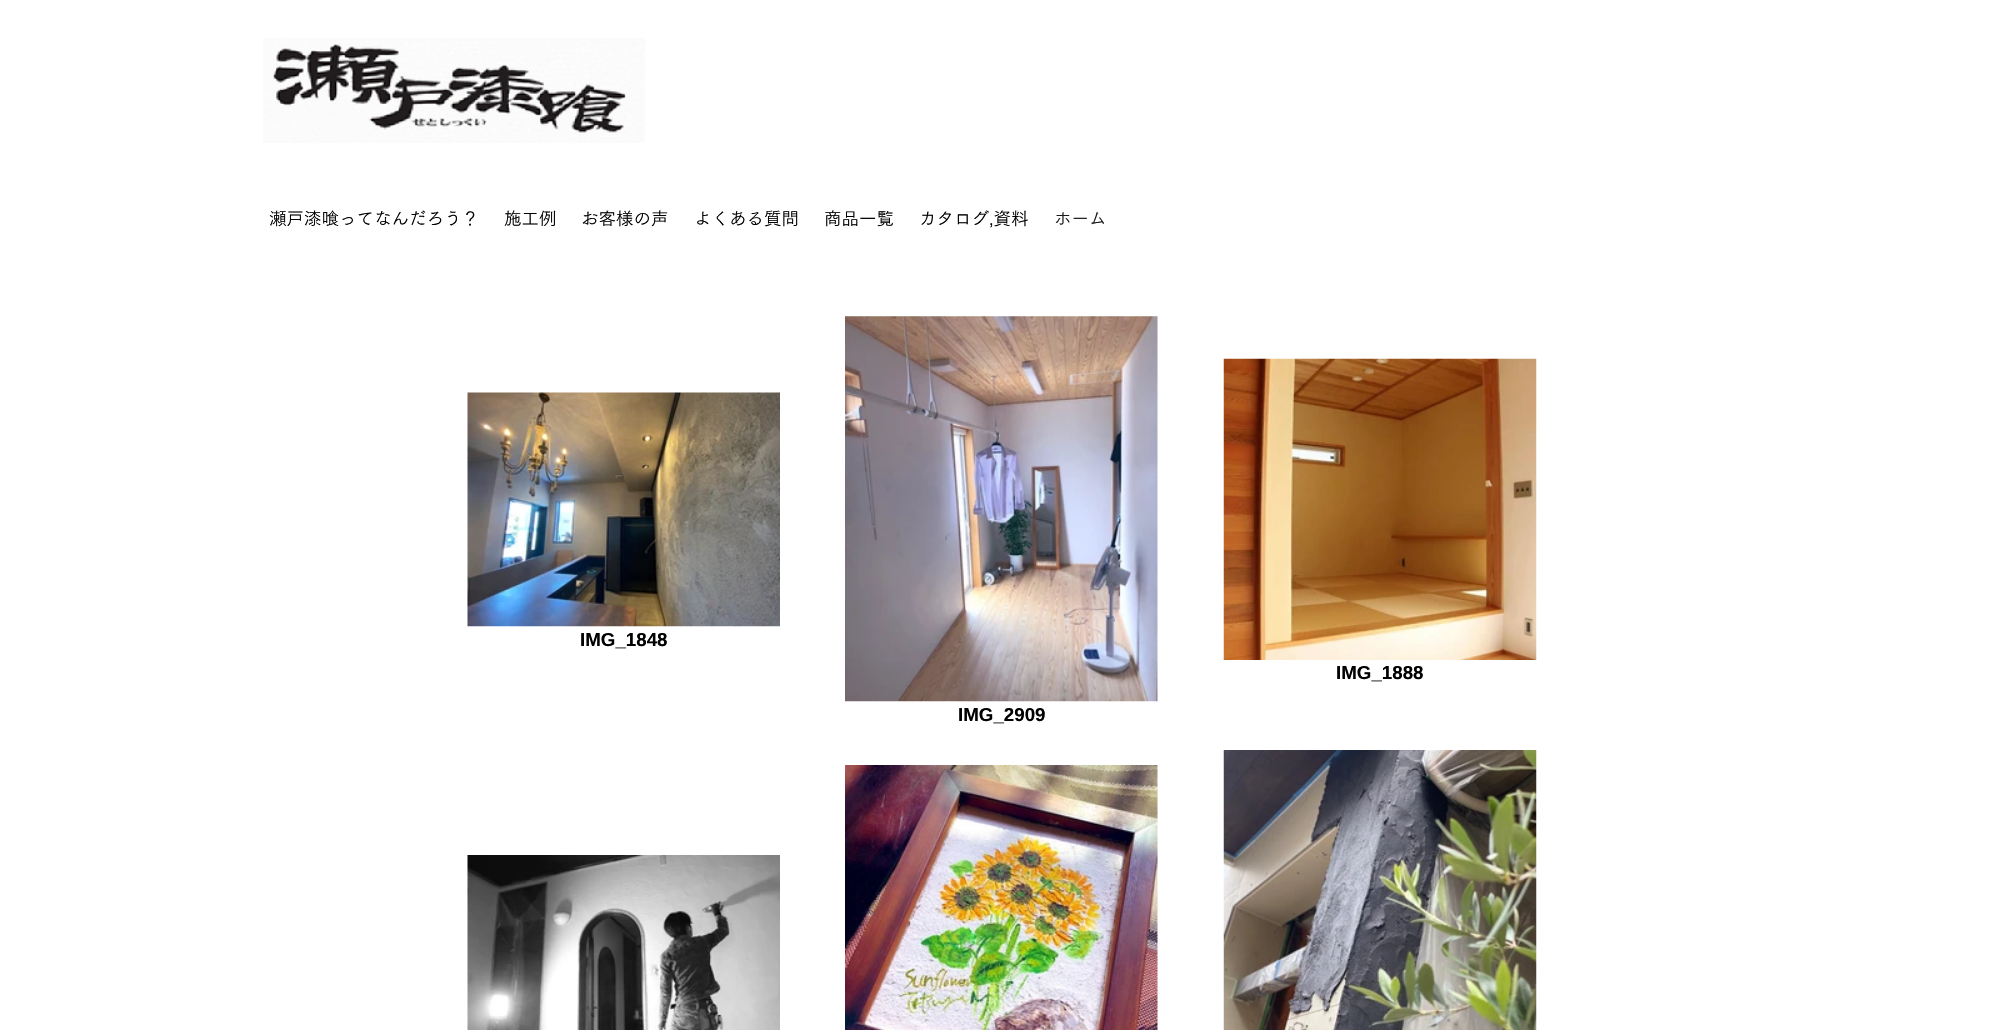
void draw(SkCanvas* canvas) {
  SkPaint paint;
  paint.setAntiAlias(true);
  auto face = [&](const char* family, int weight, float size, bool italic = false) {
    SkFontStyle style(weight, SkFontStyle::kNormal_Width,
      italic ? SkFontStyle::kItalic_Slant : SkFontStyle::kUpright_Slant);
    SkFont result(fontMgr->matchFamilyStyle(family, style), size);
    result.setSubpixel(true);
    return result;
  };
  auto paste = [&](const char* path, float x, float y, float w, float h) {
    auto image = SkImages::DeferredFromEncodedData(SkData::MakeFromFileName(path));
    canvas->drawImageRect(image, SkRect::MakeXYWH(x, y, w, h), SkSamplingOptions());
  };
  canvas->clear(0xffffffff);
  paste("img/1.png", 263, 38, 382, 105);
  paste("img/2.png", 467, 392, 313, 235);
  paste("img/3.png", 1223, 358, 314, 302);
  paste("img/4.png", 845, 316, 313, 386);
  paste("img/5.png", 467, 855, 313, 175);
  paste("img/6.png", 845, 765, 313, 265);
  paste("img/7.png", 1223, 750, 314, 280);
  auto f0 = face("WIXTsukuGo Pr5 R", 400, 17.5f);
  paint.setColor(0xff000000);
  {
    const struct { const char* s; float x, y; } items[] = {
      {"瀬戸漆喰ってなんだろう？", 269, 225},
      {"施工例", 504, 225},
      {"お客様の声", 581, 225},
      {"よくある質問", 694, 225},
      {"商品一覧", 824, 225},
      {"カタログ,資料", 919, 225},
    };
    for (auto [s, x, y] : items) {
      canvas->drawString(s, x, y, f0, paint);
    }
  }
  paint.setColor(0xff191919);
  canvas->drawString("ホーム", 1054, 225, f0, paint);
  auto f1 = face("Liberation Sans", 700, 18.75f);
  paint.setColor(0xff000000);
  {
    const struct { const char* s; float x, y; } items[] = {
      {"IMG_1848", 580, 646},
      {"IMG_1888", 1336, 679},
      {"IMG_2909", 958, 721},
    };
    for (auto [s, x, y] : items) {
      canvas->drawString(s, x, y, f1, paint);
    }
  }
}
